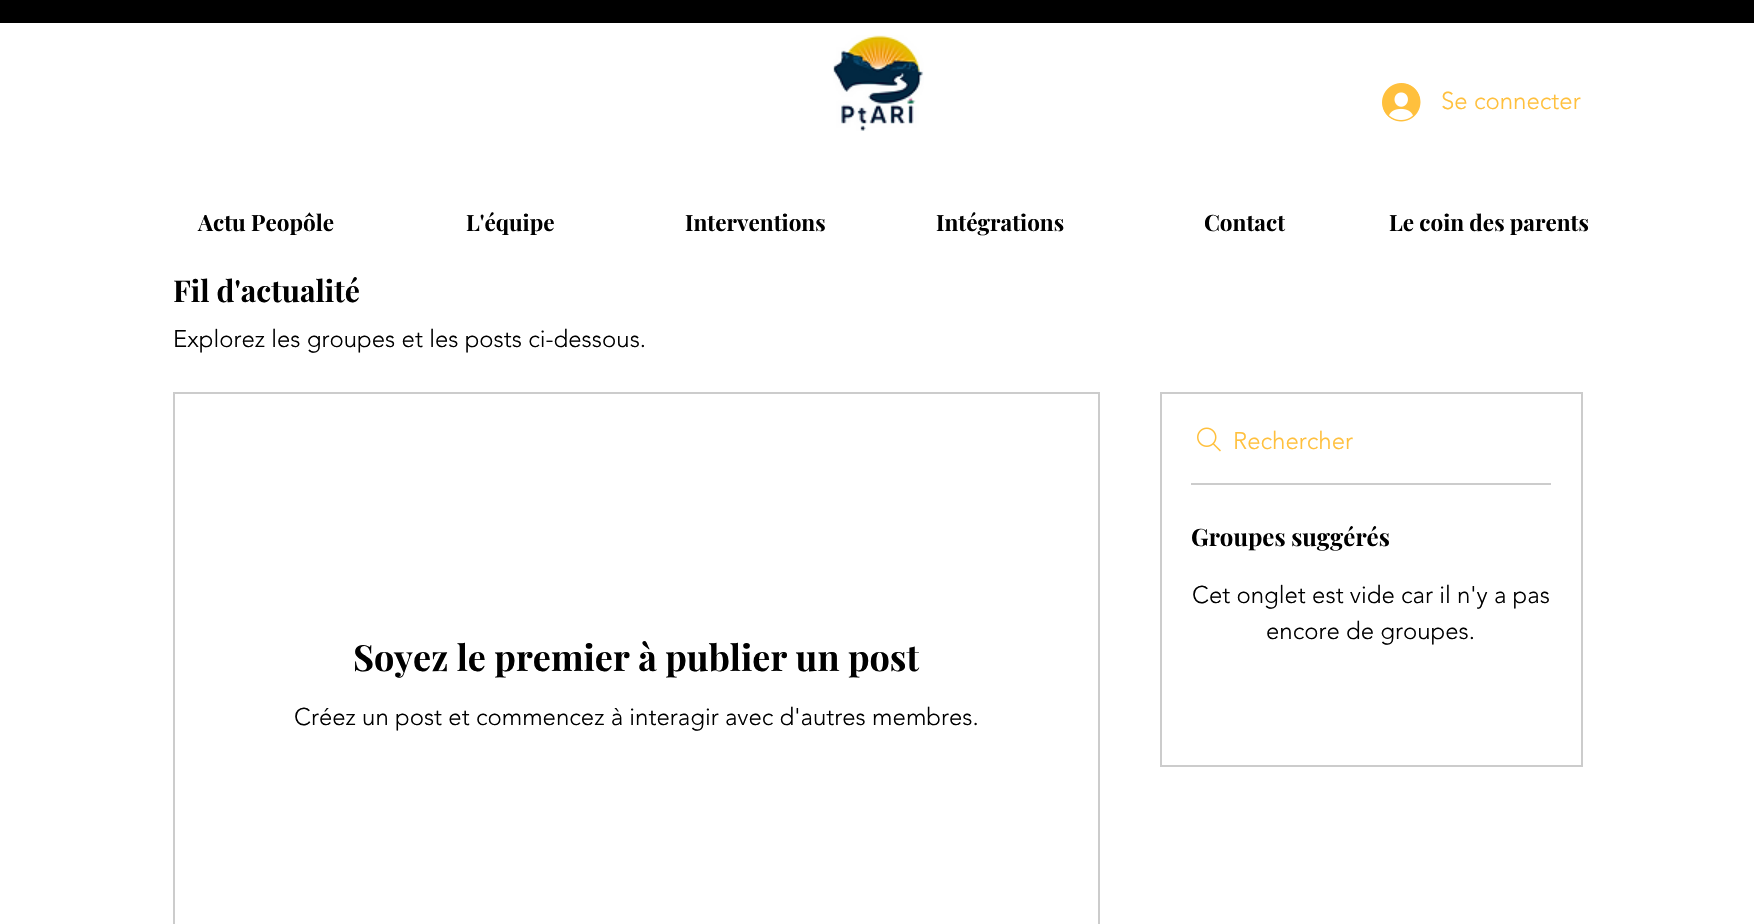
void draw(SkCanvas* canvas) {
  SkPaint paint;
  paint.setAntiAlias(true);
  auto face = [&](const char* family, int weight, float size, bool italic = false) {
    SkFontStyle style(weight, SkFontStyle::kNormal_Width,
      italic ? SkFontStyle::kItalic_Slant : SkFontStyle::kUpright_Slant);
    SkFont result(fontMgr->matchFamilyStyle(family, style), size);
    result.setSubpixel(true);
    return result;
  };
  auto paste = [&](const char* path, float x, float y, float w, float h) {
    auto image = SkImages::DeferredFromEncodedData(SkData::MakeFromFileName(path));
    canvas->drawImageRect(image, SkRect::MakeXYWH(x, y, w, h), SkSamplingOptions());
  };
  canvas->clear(0xffffffff);
  paint.setColor(0xff000000);
  canvas->drawRect(SkRect::MakeXYWH(0, 0, 1754, 23), paint);
  paste("img/1.png", 833, 35, 91, 96);
  paste("img/2.png", 1382, 83, 39, 39);
  paint.setStroke(true);
  paint.setStrokeWidth(2);
  paint.setColor(0xffcccccc);
  canvas->drawRect(SkRect::MakeXYWH(1161, 393, 421, 373), paint);
  paste("img/3.png", 1197, 427, 24, 25);
  paint.setStroke(false);
  canvas->drawRect(SkRect::MakeXYWH(1191, 483, 360, 2), paint);
  paint.setStroke(true);
  canvas->drawRect(SkRect::MakeXYWH(174, 393, 925, 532), paint);
  auto f0 = face("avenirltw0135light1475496", 300, 24);
  paint.setStroke(false);
  paint.setColor(0xffffc03d);
  canvas->drawString("Se connecter", 1441, 109, f0, paint);
  auto f1 = face("Playfair Display", 700, 22.5f);
  paint.setColor(0xff000000);
  {
    const struct { const char* s; float x, y; } items[] = {
      {"Actu Peopôle", 198, 231},
      {"L'équipe", 466, 231},
      {"Interventions", 685, 231},
      {"Intégrations", 936, 231},
      {"Contact", 1204, 231},
      {"Le coin des parents", 1389, 231},
    };
    for (auto [s, x, y] : items) {
      canvas->drawString(s, x, y, f1, paint);
    }
  }
  auto f2 = face("Playfair Display", 700, 30);
  canvas->drawString("Fil d'actualité", 173, 302, f2, paint);
  canvas->drawString("Explorez les groupes et les posts ci-dessous.", 173, 347, f0, paint);
  paint.setColor(0xffffc03d);
  canvas->drawString("Rechercher", 1233, 449, f0, paint);
  auto f3 = face("Playfair Display", 700, 24);
  paint.setColor(0xff000000);
  canvas->drawString("Groupes suggérés", 1191, 546, f3, paint);
  canvas->drawString("Cet onglet est vide car il n'y a pas", 1192, 603, f0, paint);
  canvas->drawString("encore de groupes.", 1266, 639, f0, paint);
  auto f4 = face("Playfair Display", 700, 36);
  canvas->drawString("Soyez le premier à publier un post", 353, 671, f4, paint);
  canvas->drawString("Créez un post et commencez à interagir avec d'autres membres.", 294, 725, f0, paint);
}
